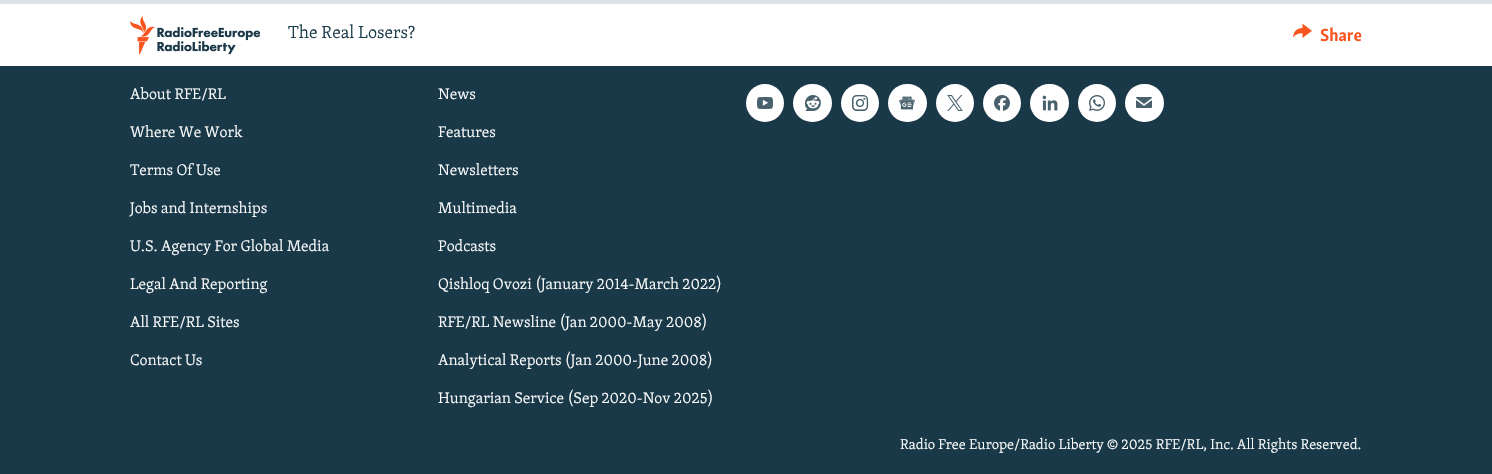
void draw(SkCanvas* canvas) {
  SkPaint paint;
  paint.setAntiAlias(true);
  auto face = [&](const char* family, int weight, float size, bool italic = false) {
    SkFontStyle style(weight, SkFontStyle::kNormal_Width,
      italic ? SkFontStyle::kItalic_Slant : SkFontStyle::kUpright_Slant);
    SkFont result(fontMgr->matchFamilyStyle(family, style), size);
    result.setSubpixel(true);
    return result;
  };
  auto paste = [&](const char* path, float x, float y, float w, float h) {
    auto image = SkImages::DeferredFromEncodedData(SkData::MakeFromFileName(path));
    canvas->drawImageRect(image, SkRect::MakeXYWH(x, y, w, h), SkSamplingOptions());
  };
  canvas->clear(0xff1a3948);
  paint.setColor(0xffffffff);
  canvas->drawRect(SkRect::MakeXYWH(0, 4, 1492, 62), paint);
  paint.setColor(0xffdce4e8);
  canvas->drawRect(SkRect::MakeXYWH(0, 0, 1492, 4), paint);
  paste("img/1.png", 130, 15, 130, 40);
  paste("img/2.png", 1293, 23, 19, 15);
  paint.setColor(0xffffffff);
  canvas->drawCircle(765, 103, 19, paint);
  paste("img/3.png", 757, 97, 16, 12);
  canvas->drawRoundRect(SkRect::MakeXYWH(793, 84, 39, 38), 19, 19, paint);
  paste("img/4.png", 805, 95, 16, 16);
  canvas->drawCircle(860, 103, 19, paint);
  paste("img/5.png", 852, 95, 17, 16);
  canvas->drawRoundRect(SkRect::MakeXYWH(888, 84, 39, 38), 19, 19, paint);
  paste("img/6.png", 899, 96, 16, 14);
  canvas->drawCircle(955, 103, 19, paint);
  paste("img/7.png", 947, 95, 16, 16);
  canvas->drawCircle(1002, 103, 19, paint);
  paste("img/8.png", 994, 95, 16, 16);
  canvas->drawRoundRect(SkRect::MakeXYWH(1030, 84, 39, 38), 19, 19, paint);
  paste("img/9.png", 1042, 95, 16, 16);
  canvas->drawCircle(1097, 103, 19, paint);
  paste("img/10.png", 1089, 95, 16, 16);
  canvas->drawRoundRect(SkRect::MakeXYWH(1125, 84, 39, 38), 19, 19, paint);
  paste("img/11.png", 1136, 97, 16, 11);
  auto f0 = face("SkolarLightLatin", 300, 18);
  paint.setColor(0xff1a3948);
  canvas->drawString("The Real Losers?", 288, 38, f0, paint);
  auto f1 = face("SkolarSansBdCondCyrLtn", 700, 18);
  paint.setColor(0xfffa5420);
  canvas->drawString("Share", 1320, 41, f1, paint);
  auto f2 = face("SkolarLightLatin", 300, 15.75f);
  paint.setColor(0xffffffff);
  {
    const struct { const char* s; float x, y; } items[] = {
      {"About RFE/RL", 130, 99},
      {"Where We Work", 130, 137},
      {"Terms Of Use", 130, 175},
      {"Jobs and Internships", 130, 213},
      {"U.S. Agency For Global Media", 130, 251},
      {"Legal And Reporting", 130, 289},
      {"All RFE/RL Sites", 130, 327},
      {"Contact Us", 130, 365},
      {"News", 438, 99},
      {"Features", 438, 137},
      {"Newsletters", 438, 175},
      {"Multimedia", 438, 213},
      {"Podcasts", 438, 251},
      {"Qishloq Ovozi (January 2014-March 2022)", 438, 289},
      {"RFE/RL Newsline (Jan 2000-May 2008)", 438, 327},
      {"Analytical Reports (Jan 2000-June 2008)", 438, 365},
      {"Hungarian Service (Sep 2020-Nov 2025)", 438, 403},
    };
    for (auto [s, x, y] : items) {
      canvas->drawString(s, x, y, f2, paint);
    }
  }
  auto f3 = face("SkolarLightLatin", 300, 14.6f);
  canvas->drawString("Radio Free Europe/Radio Liberty © 2025 RFE/RL, Inc. All Rights Reserved.", 900, 449, f3, paint);
}
